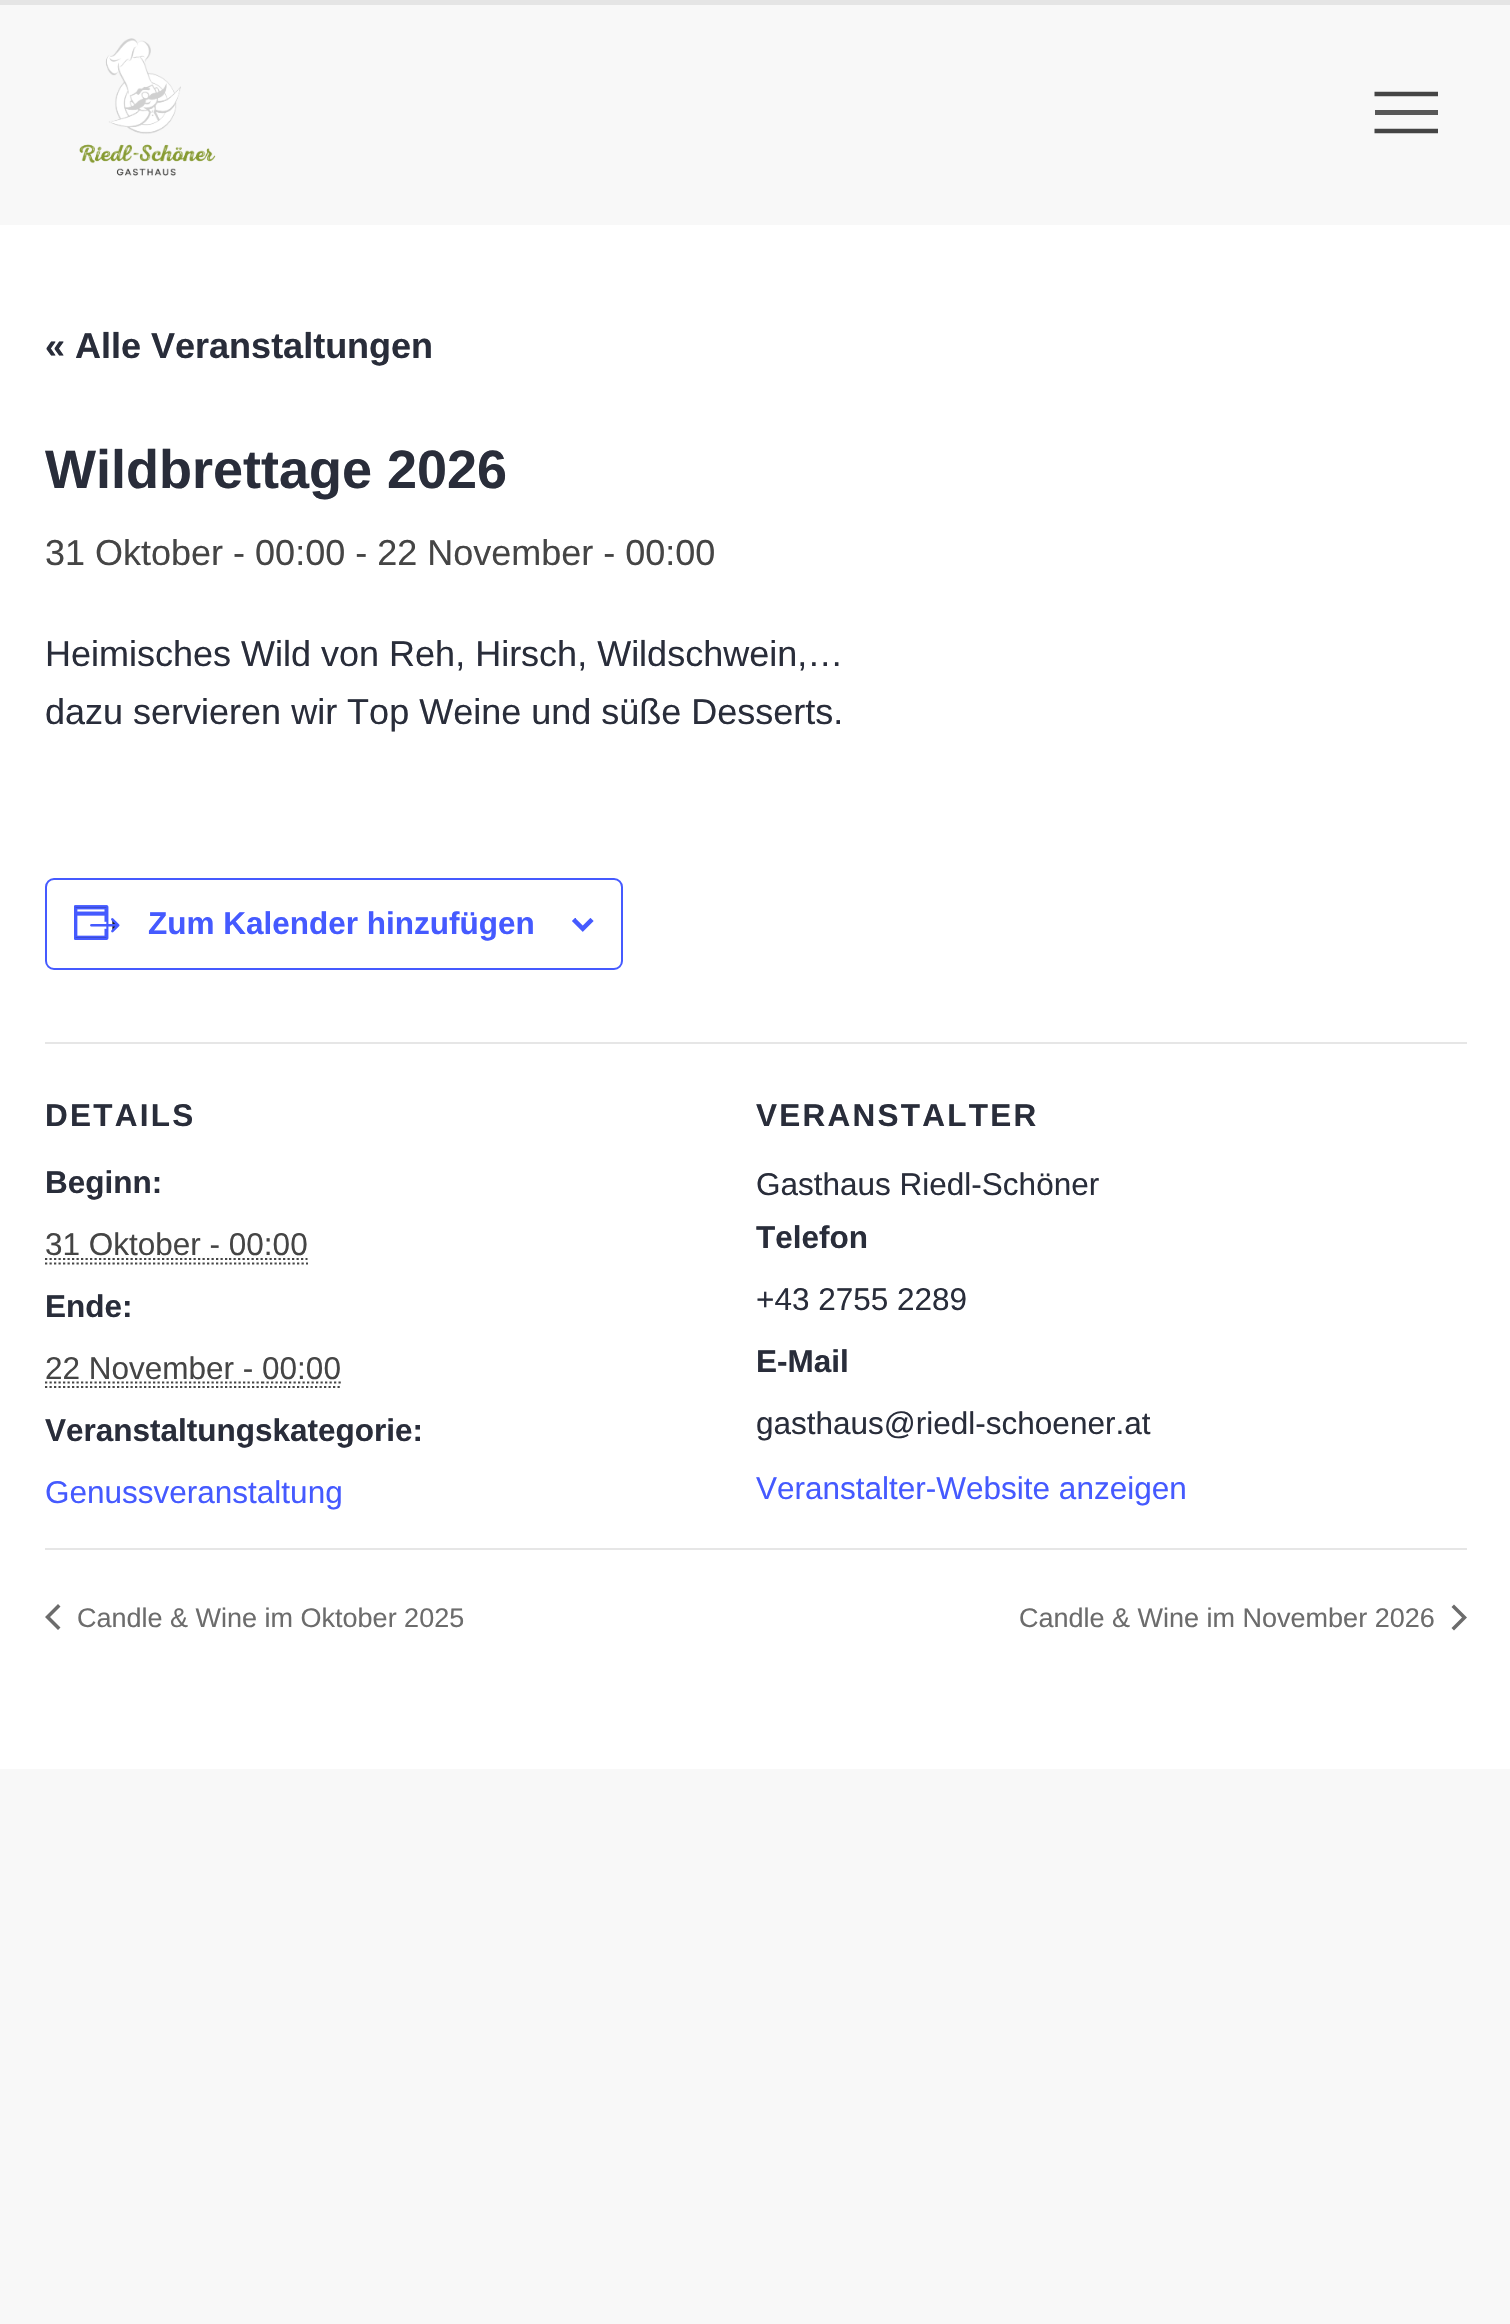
void draw(SkCanvas* canvas) {
  SkPaint paint;
  paint.setAntiAlias(true);
  auto face = [&](const char* family, int weight, float size, bool italic = false) {
    SkFontStyle style(weight, SkFontStyle::kNormal_Width,
      italic ? SkFontStyle::kItalic_Slant : SkFontStyle::kUpright_Slant);
    SkFont result(fontMgr->matchFamilyStyle(family, style), size);
    result.setSubpixel(true);
    return result;
  };
  auto writeSpaced = [&](const char* s, float x, float y, const SkFont& font, const SkPaint& ink, float letter, float word) {
    std::vector<SkGlyphID> glyphs(font.countText(s, strlen(s), SkTextEncoding::kUTF8));
    std::vector<float> xs(glyphs.size());
    font.textToGlyphs(s, strlen(s), SkTextEncoding::kUTF8, glyphs);
    font.getXPos(glyphs, xs, x);
    float extra = 0;
    for (size_t i = 0; i < glyphs.size(); i++) {
      xs[i] += extra;
      extra += letter + word * (glyphs[i] == font.unicharToGlyph(' '));
    }
    canvas->drawTextBlob(SkTextBlob::MakeFromPosHGlyphs(glyphs, xs, y, font), 0, 0, ink);
  };
  auto paste = [&](const char* path, float x, float y, float w, float h) {
    auto image = SkImages::DeferredFromEncodedData(SkData::MakeFromFileName(path));
    canvas->drawImageRect(image, SkRect::MakeXYWH(x, y, w, h), SkSamplingOptions());
  };
  auto shape = [&](const char* data, bool evenOdd = false) {
    SkPath result = *SkParsePath::FromSVGString(data);
    if (evenOdd) result.setFillType(SkPathFillType::kEvenOdd);
    return result;
  };
  canvas->clear(0xffffffff);
  paint.setColor(0xffe5e5e5);
  canvas->drawRect(SkRect::MakeXYWH(0, 0, 1510, 5), paint);
  paint.setColor(0xfff8f8f8);
  canvas->drawRect(SkRect::MakeXYWH(0, 5, 1510, 220), paint);
  paste("img/1.png", 79, 38, 137, 138);
  paint.setStroke(true);
  paint.setStrokeWidth(4.5f);
  paint.setColor(0xff454545);
  canvas->drawPath(shape("M1374.5 94H1438"), paint);
  paint.setStroke(false);
  paint.setColor(0xff585858);
  canvas->drawRect(SkRect::MakeXYWH(1375, 110, 63, 5), paint);
  paint.setStroke(true);
  paint.setColor(0xff454545);
  canvas->drawPath(shape("M1374.5 131H1438"), paint);
  paint.setStrokeWidth(2);
  paint.setColor(0xff455aff);
  canvas->drawRoundRect(SkRect::MakeXYWH(46, 879, 576, 90), 8, 8, paint);
  paste("img/2.png", 74, 905, 46, 35);
  paste("img/3.png", 572, 918, 22, 14);
  paint.setStroke(false);
  paint.setColor(0xffe6e6e6);
  canvas->drawRect(SkRect::MakeXYWH(45, 1042, 1422, 2), paint);
  paint.setStroke(true);
  paint.setStrokeWidth(2.2f);
  paint.setColor(0xff454545);
  paint.setPathEffect(SkDashPathEffect::Make({{2.25f, 2.25f}}, 0));
  canvas->drawPath(shape("M45 1263.5H308"), paint);
  paint.setPathEffect(nullptr);
  paint.setPathEffect(SkDashPathEffect::Make({{2.25f, 2.25f}}, 0));
  canvas->drawPath(shape("M45 1259H229"), paint);
  paint.setPathEffect(nullptr);
  paint.setPathEffect(SkDashPathEffect::Make({{2.25f, 2.25f}}, 0));
  canvas->drawPath(shape("M229 1259H307.5"), paint);
  paint.setPathEffect(nullptr);
  paint.setPathEffect(SkDashPathEffect::Make({{2.25f, 2.25f}}, 0));
  canvas->drawPath(shape("M45 1387H342"), paint);
  paint.setPathEffect(nullptr);
  paint.setPathEffect(SkDashPathEffect::Make({{2.25f, 2.25f}}, 0));
  canvas->drawPath(shape("M45 1382.5H262"), paint);
  paint.setPathEffect(nullptr);
  paint.setPathEffect(SkDashPathEffect::Make({{2.25f, 2.25f}}, 0));
  canvas->drawPath(shape("M262 1382.5H341"), paint);
  paint.setPathEffect(nullptr);
  paint.setStroke(false);
  paint.setColor(0xffe6e6e6);
  canvas->drawRect(SkRect::MakeXYWH(45, 1548, 1422, 2), paint);
  paint.setColor(0xff6c6c6c);
  canvas->drawPath(shape("M60.5 1627.5L58 1630L45 1617L58 1604L60.5 1606.5L50 1617Z"), paint);
  canvas->drawPath(shape("M1451.5 1607L1454 1604.5L1467 1617.5L1454 1630.5L1451.5 1628L1462 1617.5Z"), paint);
  paint.setColor(0xfff8f8f8);
  canvas->drawRect(SkRect::MakeXYWH(0, 1769, 1510, 555), paint);
  auto f0 = face("Liberation Sans", 700, 36);
  paint.setColor(0xff292d3a);
  canvas->drawString("« Alle Veranstaltungen", 45, 358, f0, paint);
  auto f1 = face("Liberation Sans", 700, 54);
  canvas->drawString("Wildbrettage 2026", 45, 488, f1, paint);
  auto f2 = face("Liberation Sans", 400, 36);
  paint.setColor(0xff454545);
  canvas->drawString("31 Oktober - 00:00 - 22 November - 00:00", 45, 565, f2, paint);
  paint.setColor(0xff292d3a);
  canvas->drawString("Heimisches Wild von Reh, Hirsch, Wildschwein,…", 45, 666, f2, paint);
  canvas->drawString("dazu servieren wir Top Weine und süße Desserts.", 45, 724, f2, paint);
  auto f3 = face("Liberation Sans", 700, 31.5f);
  paint.setColor(0xff455aff);
  canvas->drawString("Zum Kalender hinzufügen", 148, 934, f3, paint);
  paint.setColor(0xff292d3a);
  writeSpaced("DETAILS", 45, 1126, f3, paint, 2.25f, 0);
  canvas->drawString("Beginn:", 45, 1193, f3, paint);
  auto f4 = face("Liberation Sans", 400, 31.5f);
  paint.setColor(0xff454545);
  canvas->drawString("31 Oktober - 00:00", 45, 1255, f4, paint);
  paint.setColor(0xff292d3a);
  canvas->drawString("Ende:", 45, 1317, f3, paint);
  paint.setColor(0xff454545);
  canvas->drawString("22 November - 00:00", 45, 1379, f4, paint);
  paint.setColor(0xff292d3a);
  canvas->drawString("Veranstaltungskategorie:", 45, 1441, f3, paint);
  paint.setColor(0xff455aff);
  canvas->drawString("Genussveranstaltung", 45, 1503, f4, paint);
  paint.setColor(0xff292d3a);
  writeSpaced("VERANSTALTER", 756, 1126, f3, paint, 2.25f, 0);
  canvas->drawString("Gasthaus Riedl-Schöner", 756, 1195, f4, paint);
  canvas->drawString("Telefon", 756, 1248, f3, paint);
  canvas->drawString("+43 2755 2289", 756, 1310, f4, paint);
  canvas->drawString("E-Mail", 756, 1372, f3, paint);
  canvas->drawString("gasthaus@riedl-schoener.at", 756, 1434, f4, paint);
  paint.setColor(0xff455aff);
  canvas->drawString("Veranstalter-Website anzeigen", 756, 1499, f4, paint);
  auto f5 = face("Liberation Sans", 400, 27);
  paint.setColor(0xff6c6c6c);
  canvas->drawString("Candle & Wine im Oktober 2025", 77, 1627, f5, paint);
  canvas->drawString("Candle & Wine im November 2026", 1019, 1627, f5, paint);
}
